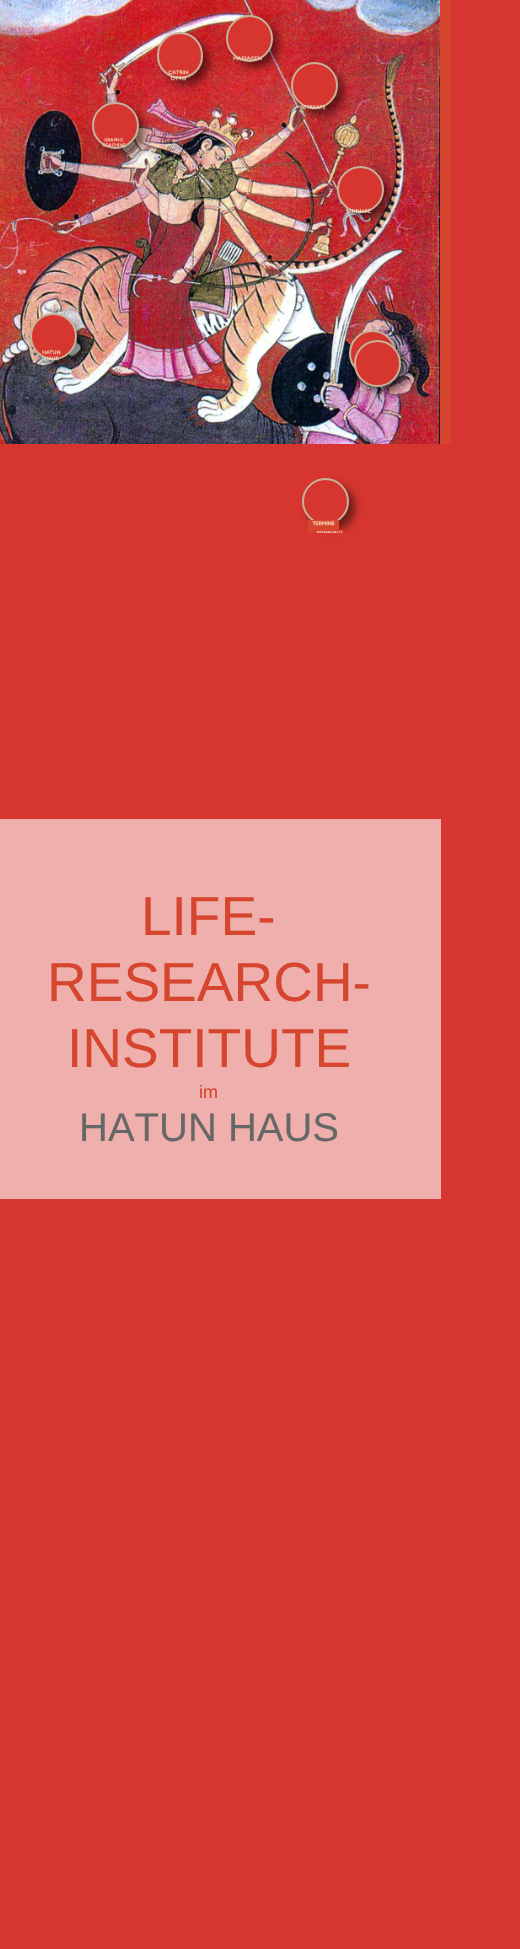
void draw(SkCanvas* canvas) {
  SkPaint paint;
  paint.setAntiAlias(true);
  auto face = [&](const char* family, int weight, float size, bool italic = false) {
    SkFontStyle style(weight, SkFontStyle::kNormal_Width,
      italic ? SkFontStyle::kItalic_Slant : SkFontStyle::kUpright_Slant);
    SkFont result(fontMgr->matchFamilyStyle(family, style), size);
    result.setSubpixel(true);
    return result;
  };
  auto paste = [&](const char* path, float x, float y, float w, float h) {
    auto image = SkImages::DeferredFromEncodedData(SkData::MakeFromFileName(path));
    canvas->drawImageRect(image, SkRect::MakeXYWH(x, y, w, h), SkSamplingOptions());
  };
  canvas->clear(0xffd6362f);
  paint.setColor(0xffd6462f);
  canvas->drawRect(SkRect::MakeXYWH(440, 0, 11, 444), paint);
  paste("img/1.png", 0, 0, 440, 444);
  paint.setColor(0x80000000);
  paint.setMaskFilter(SkMaskFilter::MakeBlur(kNormal_SkBlurStyle, 4));
  canvas->drawRoundRect(SkRect::MakeXYWH(163, 38, 46, 47), 23, 23, paint);
  paint.setMaskFilter(nullptr);
  paint.setColor(0xffd6362f);
  canvas->drawRoundRect(SkRect::MakeXYWH(158, 33, 44, 45), 22, 22, paint);
  paint.setStroke(true);
  paint.setStrokeWidth(2);
  paint.setColor(0xffc7b299);
  canvas->drawRoundRect(SkRect::MakeXYWH(158, 33, 44, 45), 22, 22, paint);
  paint.setStroke(false);
  paint.setColor(0x80000000);
  paint.setMaskFilter(SkMaskFilter::MakeBlur(kNormal_SkBlurStyle, 4));
  canvas->drawRoundRect(SkRect::MakeXYWH(232, 21, 47, 47), 23.5f, 23.5f, paint);
  paint.setMaskFilter(nullptr);
  paint.setColor(0xffd6362f);
  canvas->drawCircle(249.5f, 38.5f, 22.5f, paint);
  paint.setStroke(true);
  paint.setColor(0xffc7b299);
  canvas->drawCircle(249.5f, 38.5f, 22.5f, paint);
  paste("img/2.png", 168, 69, 21, 12);
  paste("img/3.png", 233, 55, 30, 6);
  paint.setStroke(false);
  paint.setColor(0x80000000);
  paint.setMaskFilter(SkMaskFilter::MakeBlur(kNormal_SkBlurStyle, 4));
  canvas->drawRoundRect(SkRect::MakeXYWH(297, 68, 47, 47), 23.5f, 23.5f, paint);
  paint.setMaskFilter(nullptr);
  paint.setColor(0xffd6362f);
  canvas->drawCircle(314.5f, 85.5f, 22.5f, paint);
  paint.setStroke(true);
  paint.setColor(0xffc7b299);
  canvas->drawCircle(314.5f, 85.5f, 22.5f, paint);
  paint.setStroke(false);
  paint.setColor(0x80000000);
  paint.setMaskFilter(SkMaskFilter::MakeBlur(kNormal_SkBlurStyle, 4));
  canvas->drawRoundRect(SkRect::MakeXYWH(98, 108, 47, 47), 23.5f, 23.5f, paint);
  paint.setMaskFilter(nullptr);
  paint.setColor(0xffd6362f);
  canvas->drawCircle(115.5f, 125.5f, 22.5f, paint);
  paint.setStroke(true);
  paint.setColor(0xffc7b299);
  canvas->drawCircle(115.5f, 125.5f, 22.5f, paint);
  paste("img/4.png", 300, 104, 26, 6);
  paste("img/5.png", 102, 137, 24, 10);
  paint.setStroke(false);
  paint.setColor(0x80000000);
  paint.setMaskFilter(SkMaskFilter::MakeBlur(kNormal_SkBlurStyle, 4));
  canvas->drawRoundRect(SkRect::MakeXYWH(343, 172, 47, 47), 23.5f, 23.5f, paint);
  paint.setMaskFilter(nullptr);
  paint.setColor(0xffd6362f);
  canvas->drawCircle(360.5f, 189.5f, 22.5f, paint);
  paint.setStroke(true);
  paint.setColor(0xffc7b299);
  canvas->drawCircle(360.5f, 189.5f, 22.5f, paint);
  paste("img/6.png", 346, 208, 25, 5);
  paint.setStroke(false);
  paint.setColor(0x80000000);
  paint.setMaskFilter(SkMaskFilter::MakeBlur(kNormal_SkBlurStyle, 4));
  canvas->drawRoundRect(SkRect::MakeXYWH(36, 319, 47, 47), 23.5f, 23.5f, paint);
  paint.setMaskFilter(nullptr);
  paint.setColor(0xffd6362f);
  canvas->drawCircle(53.5f, 336.5f, 22.5f, paint);
  paint.setStroke(true);
  paint.setColor(0xffc7b299);
  canvas->drawCircle(53.5f, 336.5f, 22.5f, paint);
  paint.setStroke(false);
  paint.setColor(0x80000000);
  paint.setMaskFilter(SkMaskFilter::MakeBlur(kNormal_SkBlurStyle, 4));
  canvas->drawRoundRect(SkRect::MakeXYWH(355, 336, 47, 47), 23.5f, 23.5f, paint);
  paint.setMaskFilter(nullptr);
  paint.setColor(0xffd6362f);
  canvas->drawCircle(372.5f, 353.5f, 22.5f, paint);
  paint.setStroke(true);
  paint.setColor(0xffc7b299);
  canvas->drawCircle(372.5f, 353.5f, 22.5f, paint);
  paste("img/7.png", 42, 349, 19, 12);
  paste("img/8.png", 359, 378, 1, 1);
  paint.setStroke(false);
  paint.setColor(0x80000000);
  paint.setMaskFilter(SkMaskFilter::MakeBlur(kNormal_SkBlurStyle, 4));
  canvas->drawRoundRect(SkRect::MakeXYWH(360, 346, 47, 47), 23.5f, 23.5f, paint);
  paint.setMaskFilter(nullptr);
  paint.setColor(0xffd6362f);
  canvas->drawCircle(377.5f, 363.5f, 22.5f, paint);
  paint.setStroke(true);
  paint.setColor(0xffc7b299);
  canvas->drawCircle(377.5f, 363.5f, 22.5f, paint);
  paint.setStroke(false);
  paint.setColor(0x80000000);
  paint.setMaskFilter(SkMaskFilter::MakeBlur(kNormal_SkBlurStyle, 4));
  canvas->drawRoundRect(SkRect::MakeXYWH(308, 484, 47, 47), 23.5f, 23.5f, paint);
  paint.setMaskFilter(nullptr);
  paint.setColor(0xffd6362f);
  canvas->drawCircle(325.5f, 501.5f, 22.5f, paint);
  paint.setStroke(true);
  paint.setColor(0xffc7b299);
  canvas->drawCircle(325.5f, 501.5f, 22.5f, paint);
  paste("img/9.png", 308, 520, 31, 13);
  paste("img/10.png", 314, 530, 31, 7);
  paint.setStroke(false);
  paint.setColor(0xffefafac);
  canvas->drawRect(SkRect::MakeXYWH(0, 819, 441, 380), paint);
  auto f0 = face("Liberation Sans", 400, 55);
  paint.setColor(0xffd6462f);
  {
    const struct { const char* s; float x, y; } items[] = {
      {"LIFE-", 141, 935},
      {"RESEARCH-", 47, 1001},
      {"INSTITUTE", 67, 1067},
    };
    for (auto [s, x, y] : items) {
      canvas->drawString(s, x, y, f0, paint);
    }
  }
  auto f1 = face("Liberation Sans", 400, 18);
  canvas->drawString("im", 199, 1098, f1, paint);
  auto f2 = face("Liberation Sans", 400, 40);
  paint.setColor(0xff676767);
  canvas->drawString("HATUN HAUS", 79, 1141, f2, paint);
}
